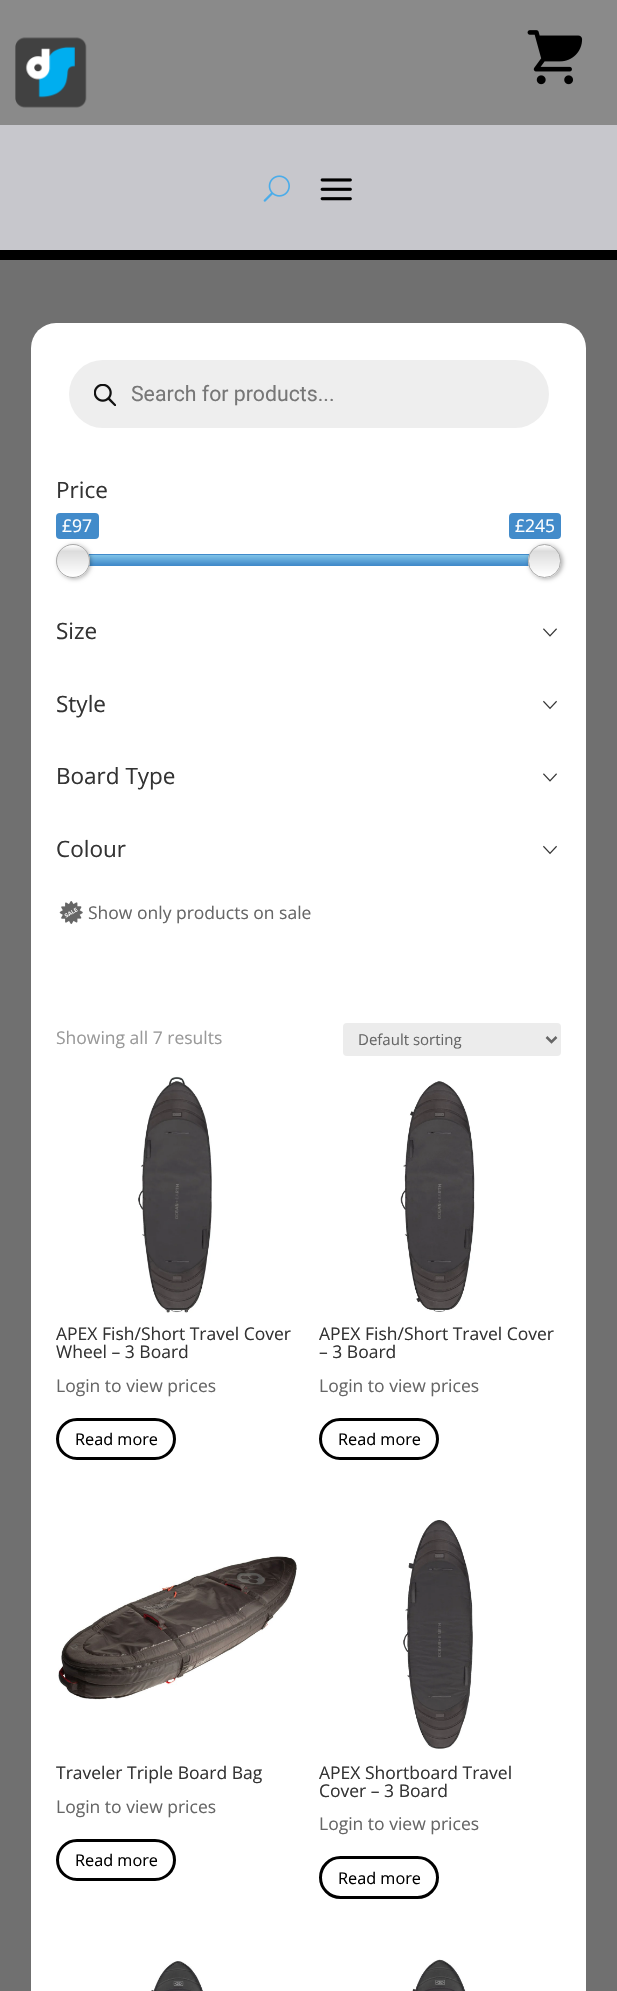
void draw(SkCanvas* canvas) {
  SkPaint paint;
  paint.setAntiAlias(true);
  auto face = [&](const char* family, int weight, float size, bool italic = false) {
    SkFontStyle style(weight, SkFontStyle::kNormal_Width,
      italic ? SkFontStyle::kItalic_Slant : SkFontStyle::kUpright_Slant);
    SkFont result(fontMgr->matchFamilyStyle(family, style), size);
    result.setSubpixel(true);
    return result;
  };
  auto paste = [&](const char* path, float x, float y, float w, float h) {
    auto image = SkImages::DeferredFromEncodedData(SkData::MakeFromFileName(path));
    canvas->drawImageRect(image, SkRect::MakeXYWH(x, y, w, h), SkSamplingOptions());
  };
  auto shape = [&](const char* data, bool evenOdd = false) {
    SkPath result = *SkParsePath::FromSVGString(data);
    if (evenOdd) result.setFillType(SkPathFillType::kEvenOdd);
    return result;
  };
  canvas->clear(0xff707070);
  paint.setColor(0xff8a8a8a);
  canvas->drawRect(SkRect::MakeXYWH(0, 0, 617, 125), paint);
  paste("img/1.png", 15, 37, 72, 71);
  paste("img/2.png", 527, 30, 56, 55);
  paint.setColor(0xffc7c7cc);
  canvas->drawRect(SkRect::MakeXYWH(0, 125, 617, 125), paint);
  paint.setColor(0xff000000);
  canvas->drawRect(SkRect::MakeXYWH(0, 250, 617, 10), paint);
  paste("img/3.png", 263, 175, 27, 27);
  paste("img/4.png", 320, 178, 32, 23);
  paint.setColor(0xffffffff);
  canvas->drawRoundRect(SkRect::MakeXYWH(31, 323, 555, 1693), 25, 25, paint);
  paint.setColor(0xffeeeeee);
  canvas->drawRoundRect(SkRect::MakeXYWH(69, 360, 480, 68), 34, 34, paint);
  paste("img/5.png", 94, 384, 22, 22);
  paint.setColor(0xff428bca);
  canvas->drawRoundRect(SkRect::MakeXYWH(56, 513, 43, 26), 4, 4, paint);
  canvas->drawRoundRect(SkRect::MakeXYWH(509, 513, 52, 26), 4, 4, paint);
  paint.setStroke(true);
  paint.setStrokeWidth(1);
  paint.setColor(0xffcccccc);
  canvas->drawRoundRect(SkRect::MakeXYWH(56.5f, 554.5f, 504, 11), 5.5f, 5.5f, paint);
  paint.setStroke(false);
  {
    const SkColor colors[] = {0xff428bca, 0xff7fc3e8};
    const float stops[] = {0, 1};
    const SkPoint ends[] = {{309, 565}, {309, 555}};
    paint.setShader(SkGradientShader::MakeLinear(ends, colors, stops, 2, SkTileMode::kClamp));
    paint.setAlpha(255);
  }
  canvas->drawRect(SkRect::MakeXYWH(88, 555, 441, 10), paint);
  paint.setShader(nullptr);
  paint.setColor(0xff428bca);
  canvas->drawRect(SkRect::MakeXYWH(88, 554, 442, 1), paint);
  canvas->drawRect(SkRect::MakeXYWH(89, 565, 440, 1), paint);
  paint.setColor(0x4d000000);
  paint.setMaskFilter(SkMaskFilter::MakeBlur(kNormal_SkBlurStyle, 2));
  canvas->drawRoundRect(SkRect::MakeXYWH(58, 545, 33, 34), 16.5f, 16.5f, paint);
  paint.setMaskFilter(nullptr);
  canvas->save();
  canvas->clipPath(shape("M73 544C82.5 544 90 551.5 90 561C90 570.5 82.5 578 73 578C63.5 578 56 570.5 56 561C56 551.5 63.5 544 73 544Z"), true);
  {
    const SkColor colors[] = {0xffffffff, 0xffdcdcdc, 0xffffffff};
    const float stops[] = {0, 0.2f, 1};
    const SkPoint ends[] = {{73, 545}, {73, 576}};
    paint.setShader(SkGradientShader::MakeLinear(ends, colors, stops, 3, SkTileMode::kClamp));
    paint.setAlpha(255);
  }
  canvas->drawRect(SkRect::MakeXYWH(56, 545, 34, 31), paint);
  {
    const SkColor colors[] = {0xffffffff, 0xffdcdcdc, 0xffffffff};
    const float stops[] = {0, 0.2f, 1};
    const SkPoint ends[] = {{73, 576}, {73, 608}};
    paint.setShader(SkGradientShader::MakeLinear(ends, colors, stops, 3, SkTileMode::kClamp));
    paint.setAlpha(255);
  }
  canvas->drawRect(SkRect::MakeXYWH(65, 576, 16, 2), paint);
  canvas->restore();
  paint.setStroke(true);
  paint.setShader(nullptr);
  paint.setColor(0xffaaaaaa);
  canvas->drawCircle(73, 561, 16.5f, paint);
  paint.setStroke(false);
  paint.setColor(0x4d000000);
  paint.setMaskFilter(SkMaskFilter::MakeBlur(kNormal_SkBlurStyle, 2));
  canvas->drawRoundRect(SkRect::MakeXYWH(529, 545, 34, 34), 17, 17, paint);
  paint.setMaskFilter(nullptr);
  canvas->save();
  canvas->clipPath(shape("M544.5 544C553.5 544 561 551.5 561 560.5V561.5C561 570.5 553.5 578 544.5 578C535.5 578 528 570.5 528 561.5V560.5C528 551.5 535.5 544 544.5 544Z"), true);
  {
    const SkColor colors[] = {0xffffffff, 0xffdcdcdc, 0xffffffff};
    const float stops[] = {0, 0.2f, 1};
    const SkPoint ends[] = {{544, 545}, {544, 576}};
    paint.setShader(SkGradientShader::MakeLinear(ends, colors, stops, 3, SkTileMode::kClamp));
    paint.setAlpha(255);
  }
  canvas->drawRect(SkRect::MakeXYWH(528, 545, 33, 31), paint);
  {
    const SkColor colors[] = {0xffffffff, 0xffdcdcdc, 0xffffffff};
    const float stops[] = {0, 0.2f, 1};
    const SkPoint ends[] = {{544, 576}, {544, 608}};
    paint.setShader(SkGradientShader::MakeLinear(ends, colors, stops, 3, SkTileMode::kClamp));
    paint.setAlpha(255);
  }
  canvas->drawRect(SkRect::MakeXYWH(528, 576, 33, 2), paint);
  canvas->restore();
  paint.setStroke(true);
  paint.setShader(nullptr);
  paint.setColor(0xffaaaaaa);
  canvas->drawRoundRect(SkRect::MakeXYWH(528.5f, 544.5f, 32, 33), 16, 16, paint);
  paste("img/6.png", 543, 628, 14, 9);
  paste("img/7.png", 543, 700, 14, 10);
  paste("img/6.png", 543, 773, 14, 9);
  paste("img/7.png", 543, 845, 14, 10);
  paste("img/8.png", 59, 901, 24, 23);
  paint.setStroke(false);
  paint.setColor(0xffececec);
  canvas->drawRoundRect(SkRect::MakeXYWH(343, 1023, 218, 33), 4, 4, paint);
  paint.setStroke(true);
  paint.setStrokeWidth(2.5f);
  paint.setColor(0xff666666);
  canvas->drawPath(shape("M546.5 1037L551.5 1042L556.5 1037"), paint);
  paste("img/9.png", 138, 1076, 74, 237);
  paint.setStrokeWidth(3);
  paint.setColor(0xff000000);
  canvas->drawRoundRect(SkRect::MakeXYWH(57.5f, 1419.5f, 117, 39), 19.5f, 19.5f, paint);
  paste("img/10.png", 400, 1081, 75, 231);
  canvas->drawRoundRect(SkRect::MakeXYWH(320.5f, 1419.5f, 117, 39), 19.5f, 19.5f, paint);
  paste("img/11.png", 58, 1556, 239, 144);
  canvas->drawRoundRect(SkRect::MakeXYWH(57.5f, 1840.5f, 117, 39), 19.5f, 19.5f, paint);
  paste("img/12.png", 403, 1520, 70, 229);
  canvas->drawRoundRect(SkRect::MakeXYWH(320.5f, 1857.5f, 117, 40), 20, 20, paint);
  paste("img/13.png", 151, 1961, 52, 30);
  paste("img/14.png", 412, 1959, 54, 32);
  auto f0 = face("Roboto", 400, 21.25f);
  paint.setStroke(false);
  paint.setColor(0xff777777);
  canvas->drawString("Search for products...", 131, 401, f0, paint);
  auto f1 = face("Open Sans", 400, 22.5f);
  paint.setColor(0xff333333);
  canvas->drawString("Price", 56, 498, f1, paint);
  auto f2 = face("Open Sans", 400, 17.5f);
  paint.setColor(0xffffffff);
  canvas->drawString("£97", 62, 532, f2, paint);
  canvas->drawString("£245", 515, 532, f2, paint);
  paint.setColor(0xff333333);
  {
    const struct { const char* s; float x, y; } items[] = {
      {"Size", 56, 639},
      {"Style", 56, 712},
      {"Board Type", 56, 784},
      {"Colour", 56, 857},
    };
    for (auto [s, x, y] : items) {
      canvas->drawString(s, x, y, f1, paint);
    }
  }
  paint.setColor(0xff666666);
  canvas->drawString("Show only products on sale", 88, 919, f2, paint);
  paint.setColor(0xff999999);
  canvas->drawString("Showing all 7 results", 56, 1044, f2, paint);
  auto f3 = face("Open Sans", 400, 15);
  paint.setColor(0xff666666);
  canvas->drawString("Default sorting", 358, 1045, f3, paint);
  paint.setColor(0xff333333);
  canvas->drawString("APEX Fish/Short Travel Cover", 56, 1340, f2, paint);
  canvas->drawString("Wheel – 3 Board", 56, 1358, f2, paint);
  paint.setColor(0xff666666);
  canvas->drawString("Login to view prices", 56, 1392, f2, paint);
  auto f4 = face("Open Sans", 400, 16.25f);
  paint.setColor(0xff000000);
  canvas->drawString("Read more", 75, 1445, f4, paint);
  paint.setColor(0xff333333);
  canvas->drawString("APEX Fish/Short Travel Cover", 319, 1340, f2, paint);
  canvas->drawString("– 3 Board", 319, 1358, f2, paint);
  paint.setColor(0xff666666);
  canvas->drawString("Login to view prices", 319, 1392, f2, paint);
  paint.setColor(0xff000000);
  canvas->drawString("Read more", 338, 1445, f4, paint);
  paint.setColor(0xff333333);
  canvas->drawString("Traveler Triple Board Bag", 56, 1779, f2, paint);
  paint.setColor(0xff666666);
  canvas->drawString("Login to view prices", 56, 1813, f2, paint);
  paint.setColor(0xff000000);
  canvas->drawString("Read more", 75, 1866, f4, paint);
  paint.setColor(0xff333333);
  canvas->drawString("APEX Shortboard Travel", 319, 1779, f2, paint);
  canvas->drawString("Cover – 3 Board", 319, 1797, f2, paint);
  paint.setColor(0xff666666);
  canvas->drawString("Login to view prices", 319, 1830, f2, paint);
  paint.setColor(0xff000000);
  canvas->drawString("Read more", 338, 1884, f4, paint);
}
